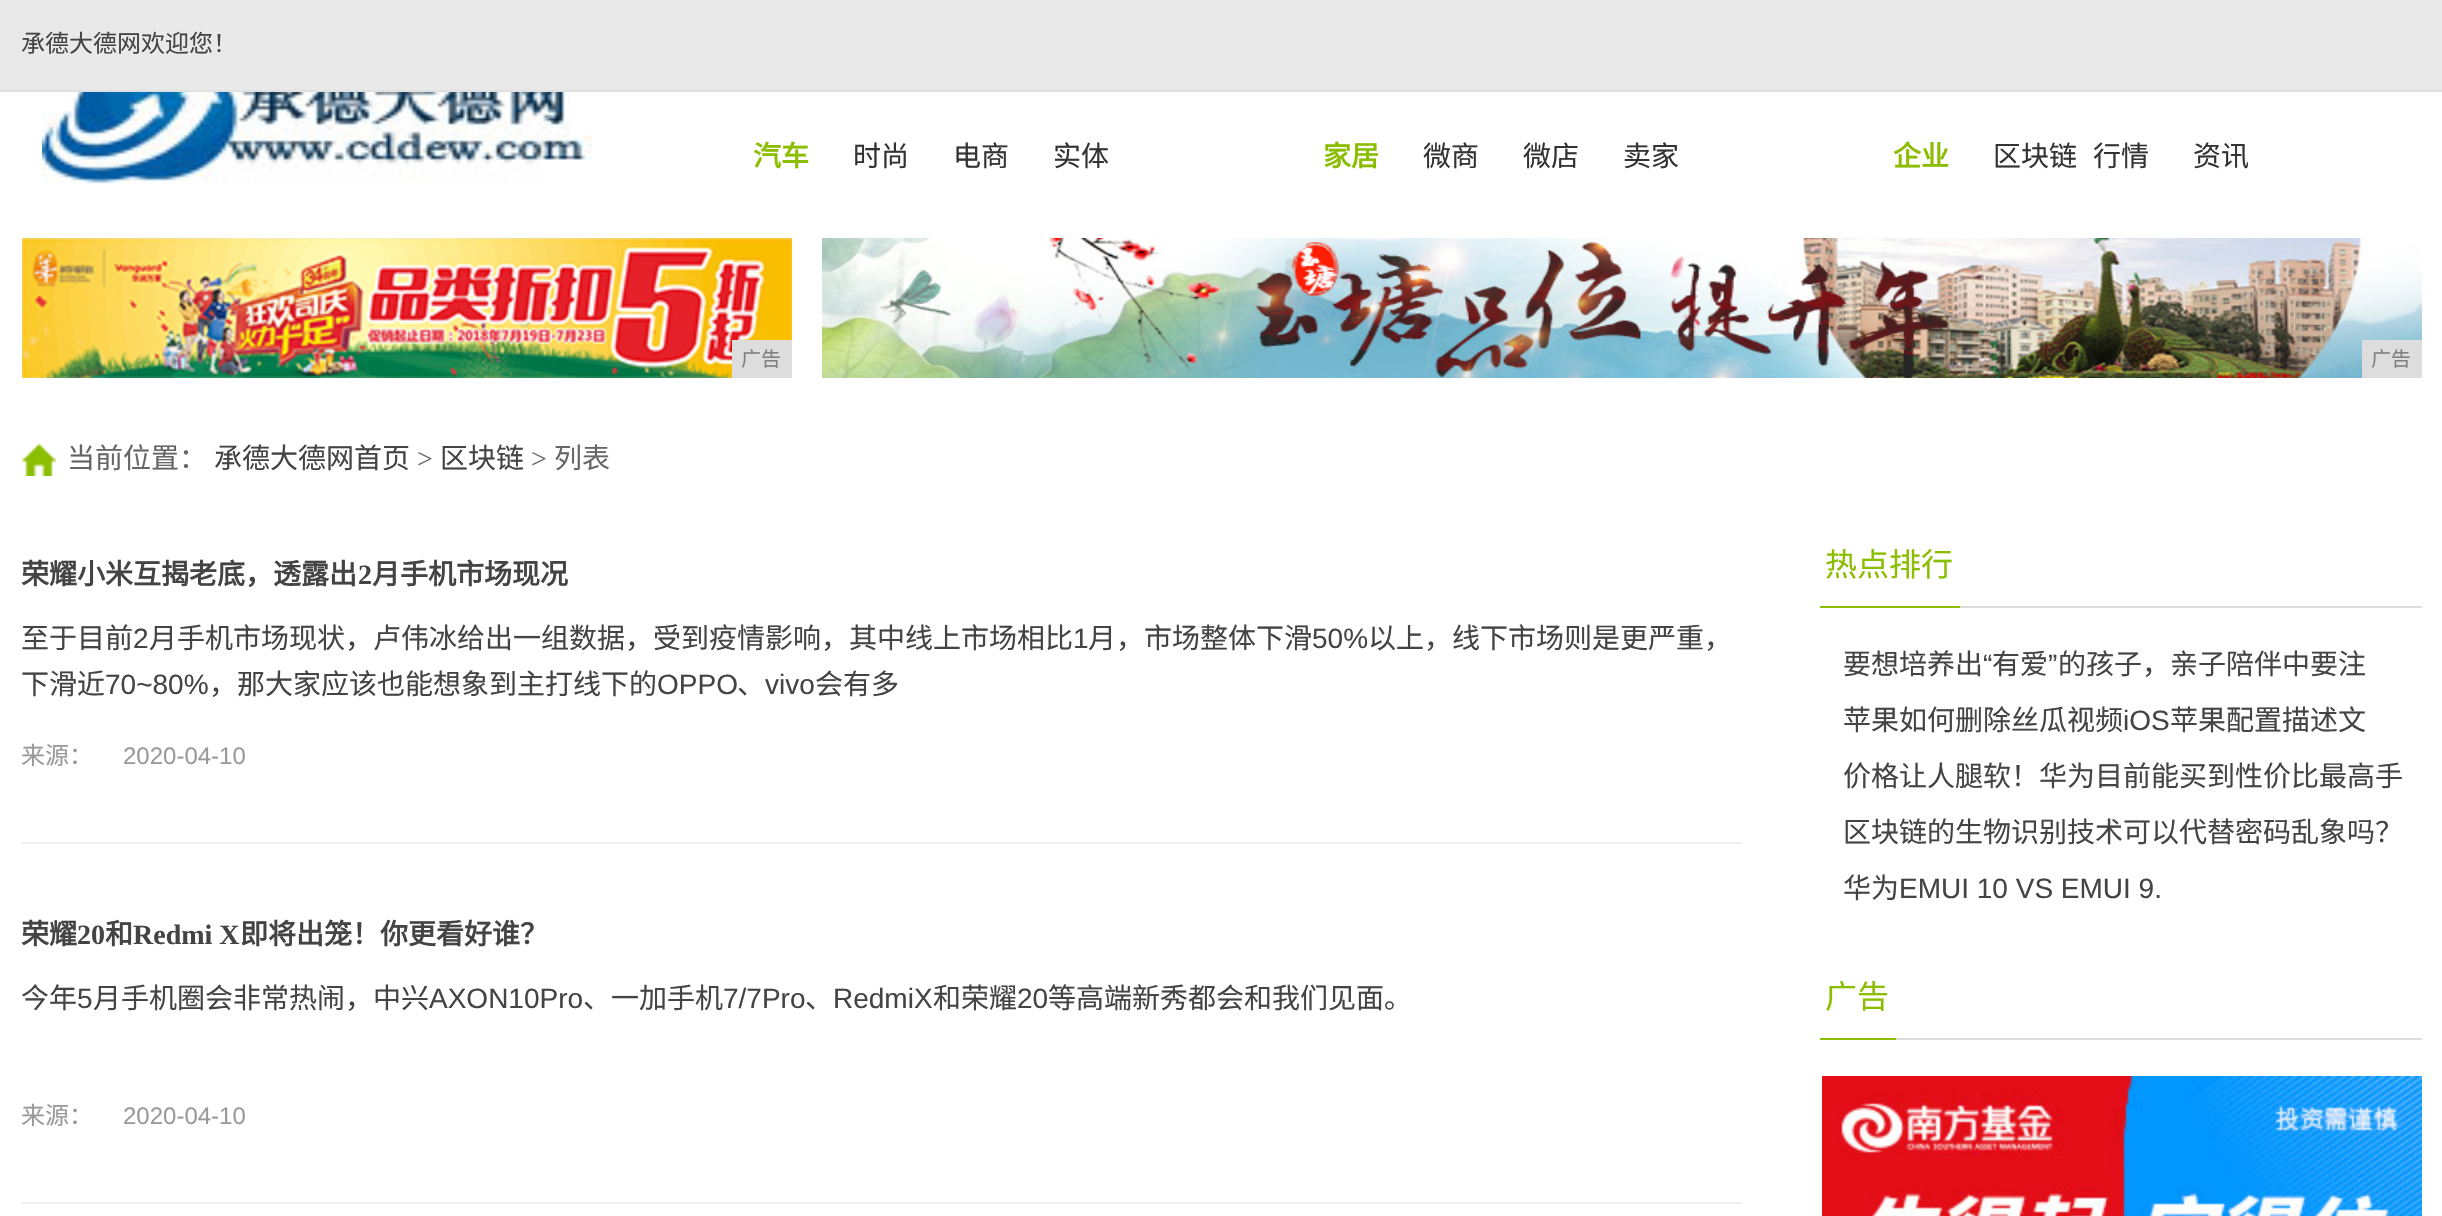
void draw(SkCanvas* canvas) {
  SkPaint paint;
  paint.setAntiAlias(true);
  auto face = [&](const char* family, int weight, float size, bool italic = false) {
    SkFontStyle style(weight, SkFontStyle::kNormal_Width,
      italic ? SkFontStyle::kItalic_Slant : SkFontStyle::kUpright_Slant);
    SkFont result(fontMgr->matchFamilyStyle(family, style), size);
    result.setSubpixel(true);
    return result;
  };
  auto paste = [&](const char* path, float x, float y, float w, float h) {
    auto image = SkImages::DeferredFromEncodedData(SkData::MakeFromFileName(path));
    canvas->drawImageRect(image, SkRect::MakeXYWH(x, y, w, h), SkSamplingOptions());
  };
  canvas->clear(0xffffffff);
  paint.setColor(0xffe9e9ea);
  canvas->drawRect(SkRect::MakeXYWH(0, 0, 2442, 90), paint);
  paint.setColor(0xffe0e0e0);
  canvas->drawRect(SkRect::MakeXYWH(0, 90, 2442, 2), paint);
  paste("img/1.png", 42, 92, 550, 92);
  paste("img/2.png", 22, 238, 770, 140);
  paint.setColor(0xffdddddd);
  canvas->drawRect(SkRect::MakeXYWH(732, 340, 60, 38), paint);
  paste("img/3.png", 822, 238, 1600, 140);
  canvas->drawRect(SkRect::MakeXYWH(2362, 340, 60, 38), paint);
  paste("img/4.png", 22, 443, 34, 33);
  {
    const struct { float x, y, w, h; SkColor color; } items[] = {
      {22, 842, 1720, 2, 0xffefefef},
      {22, 1202, 1720, 2, 0xffefefef},
      {1960, 606, 462, 2, 0xffdcdcdc},
      {1820, 606, 140, 2, 0xff8bbd00},
      {1896, 1038, 526, 2, 0xffdcdcdc},
      {1820, 1038, 76, 2, 0xff8bbd00},
    };
    for (auto [x, y, w, h, color] : items) {
      paint.setColor(color);
      canvas->drawRect(SkRect::MakeXYWH(x, y, w, h), paint);
    }
  }
  paste("img/5.png", 1822, 1076, 600, 140);
  auto f0 = face("Noto Sans CJK SC", 400, 24);
  paint.setColor(0xff444444);
  canvas->drawString("承德大德网欢迎您！", 21, 52, f0, paint);
  auto f1 = face("Noto Sans CJK SC", 700, 28);
  paint.setColor(0xff8bbd00);
  canvas->drawString("汽车", 753, 166, f1, paint);
  auto f2 = face("Noto Sans CJK SC", 400, 28);
  paint.setColor(0xff333333);
  {
    const struct { const char* s; float x, y; } items[] = {
      {"时尚", 853, 166},
      {"电商", 953, 166},
      {"实体", 1053, 166},
    };
    for (auto [s, x, y] : items) {
      canvas->drawString(s, x, y, f2, paint);
    }
  }
  paint.setColor(0xff8bbd00);
  canvas->drawString("家居", 1323, 166, f1, paint);
  paint.setColor(0xff333333);
  {
    const struct { const char* s; float x, y; } items[] = {
      {"微商", 1423, 166},
      {"微店", 1523, 166},
      {"卖家", 1623, 166},
    };
    for (auto [s, x, y] : items) {
      canvas->drawString(s, x, y, f2, paint);
    }
  }
  paint.setColor(0xff8bbd00);
  canvas->drawString("企业", 1893, 166, f1, paint);
  paint.setColor(0xff333333);
  {
    const struct { const char* s; float x, y; } items[] = {
      {"区块链", 1993, 166},
      {"行情", 2093, 166},
      {"资讯", 2193, 166},
    };
    for (auto [s, x, y] : items) {
      canvas->drawString(s, x, y, f2, paint);
    }
  }
  auto f3 = face("Noto Sans CJK SC", 400, 20);
  paint.setColor(0xff808080);
  canvas->drawString("广告", 741, 366, f3, paint);
  canvas->drawString("广告", 2371, 366, f3, paint);
  paint.setColor(0xff666666);
  canvas->drawString("当前位置：", 67, 468, f2, paint);
  paint.setColor(0xff444444);
  canvas->drawString("承德大德网首页", 214, 468, f2, paint);
  auto f4 = face("Liberation Serif", 400, 28);
  paint.setColor(0xff666666);
  canvas->drawString(">", 417, 468, f4, paint);
  paint.setColor(0xff444444);
  canvas->drawString("区块链", 440, 468, f2, paint);
  paint.setColor(0xff666666);
  canvas->drawString(">", 531, 468, f4, paint);
  canvas->drawString("列表", 554, 468, f2, paint);
  paint.setColor(0xff444444);
  canvas->drawString("荣耀小米互揭老底，透露出", 21, 584, f1, paint);
  auto f5 = face("Liberation Serif", 700, 28);
  canvas->drawString("2", 358, 584, f5, paint);
  canvas->drawString("月手机市场现况", 372, 584, f1, paint);
  canvas->drawString("至于目前", 21, 648, f2, paint);
  auto f6 = face("Liberation Sans", 400, 28);
  canvas->drawString("2", 133, 648, f6, paint);
  canvas->drawString("月手机市场现状，卢伟冰给出一组数据，受到疫情影响，其中线上市场相比", 149, 648, f2, paint);
  canvas->drawString("1", 1073, 648, f6, paint);
  canvas->drawString("月，市场整体下滑", 1088, 648, f2, paint);
  canvas->drawString("50%", 1312, 648, f6, paint);
  canvas->drawString("以上，线下市场则是更严重，", 1368, 648, f2, paint);
  canvas->drawString("下滑近", 21, 694, f2, paint);
  canvas->drawString("70~80%", 105, 694, f6, paint);
  canvas->drawString("，那大家应该也能想象到主打线下的", 209, 694, f2, paint);
  canvas->drawString("OPPO", 657, 694, f6, paint);
  canvas->drawString("、", 737, 694, f2, paint);
  canvas->drawString("vivo", 765, 694, f6, paint);
  canvas->drawString("会有多", 815, 694, f2, paint);
  paint.setColor(0xff999999);
  canvas->drawString("来源：", 21, 764, f0, paint);
  auto f7 = face("Liberation Sans", 400, 24);
  canvas->drawString("2020-04-10", 123, 764, f7, paint);
  paint.setColor(0xff444444);
  canvas->drawString("荣耀", 21, 944, f1, paint);
  canvas->drawString("20", 77, 944, f5, paint);
  canvas->drawString("和", 105, 944, f1, paint);
  canvas->drawString("Redmi X", 133, 944, f5, paint);
  canvas->drawString("即将出笼！你更看好谁？", 240, 944, f1, paint);
  canvas->drawString("今年", 21, 1008, f2, paint);
  canvas->drawString("5", 77, 1008, f6, paint);
  canvas->drawString("月手机圈会非常热闹，中兴", 93, 1008, f2, paint);
  canvas->drawString("AXON10Pro", 429, 1008, f6, paint);
  canvas->drawString("、一加手机", 583, 1008, f2, paint);
  canvas->drawString("7/7Pro", 723, 1008, f6, paint);
  canvas->drawString("、", 805, 1008, f2, paint);
  canvas->drawString("RedmiX", 833, 1008, f6, paint);
  canvas->drawString("和荣耀", 933, 1008, f2, paint);
  canvas->drawString("20", 1017, 1008, f6, paint);
  canvas->drawString("等高端新秀都会和我们见面。", 1048, 1008, f2, paint);
  paint.setColor(0xff999999);
  canvas->drawString("来源：", 21, 1124, f0, paint);
  canvas->drawString("2020-04-10", 123, 1124, f7, paint);
  auto f8 = face("Noto Sans CJK SC", 400, 32);
  paint.setColor(0xff8bbd00);
  canvas->drawString("热点排行", 1825, 576, f8, paint);
  paint.setColor(0xff444444);
  canvas->drawString("要想培养出", 1843, 674, f2, paint);
  canvas->drawString("“", 1983, 674, f6, paint);
  canvas->drawString("有爱", 1992, 674, f2, paint);
  canvas->drawString("”", 2048, 674, f6, paint);
  canvas->drawString("的孩子，亲子陪伴中要注", 2058, 674, f2, paint);
  canvas->drawString("苹果如何删除丝瓜视频", 1843, 730, f2, paint);
  canvas->drawString("iOS", 2123, 730, f6, paint);
  {
    const struct { const char* s; float x, y; } items[] = {
      {"苹果配置描述文", 2170, 730},
      {"价格让人腿软！华为目前能买到性价比最高手", 1843, 786},
      {"区块链的生物识别技术可以代替密码乱象吗？", 1843, 842},
      {"华为", 1843, 898},
    };
    for (auto [s, x, y] : items) {
      canvas->drawString(s, x, y, f2, paint);
    }
  }
  canvas->drawString("EMUI 10 VS EMUI 9.", 1899, 898, f6, paint);
  paint.setColor(0xff8bbd00);
  canvas->drawString("广告", 1825, 1008, f8, paint);
}
